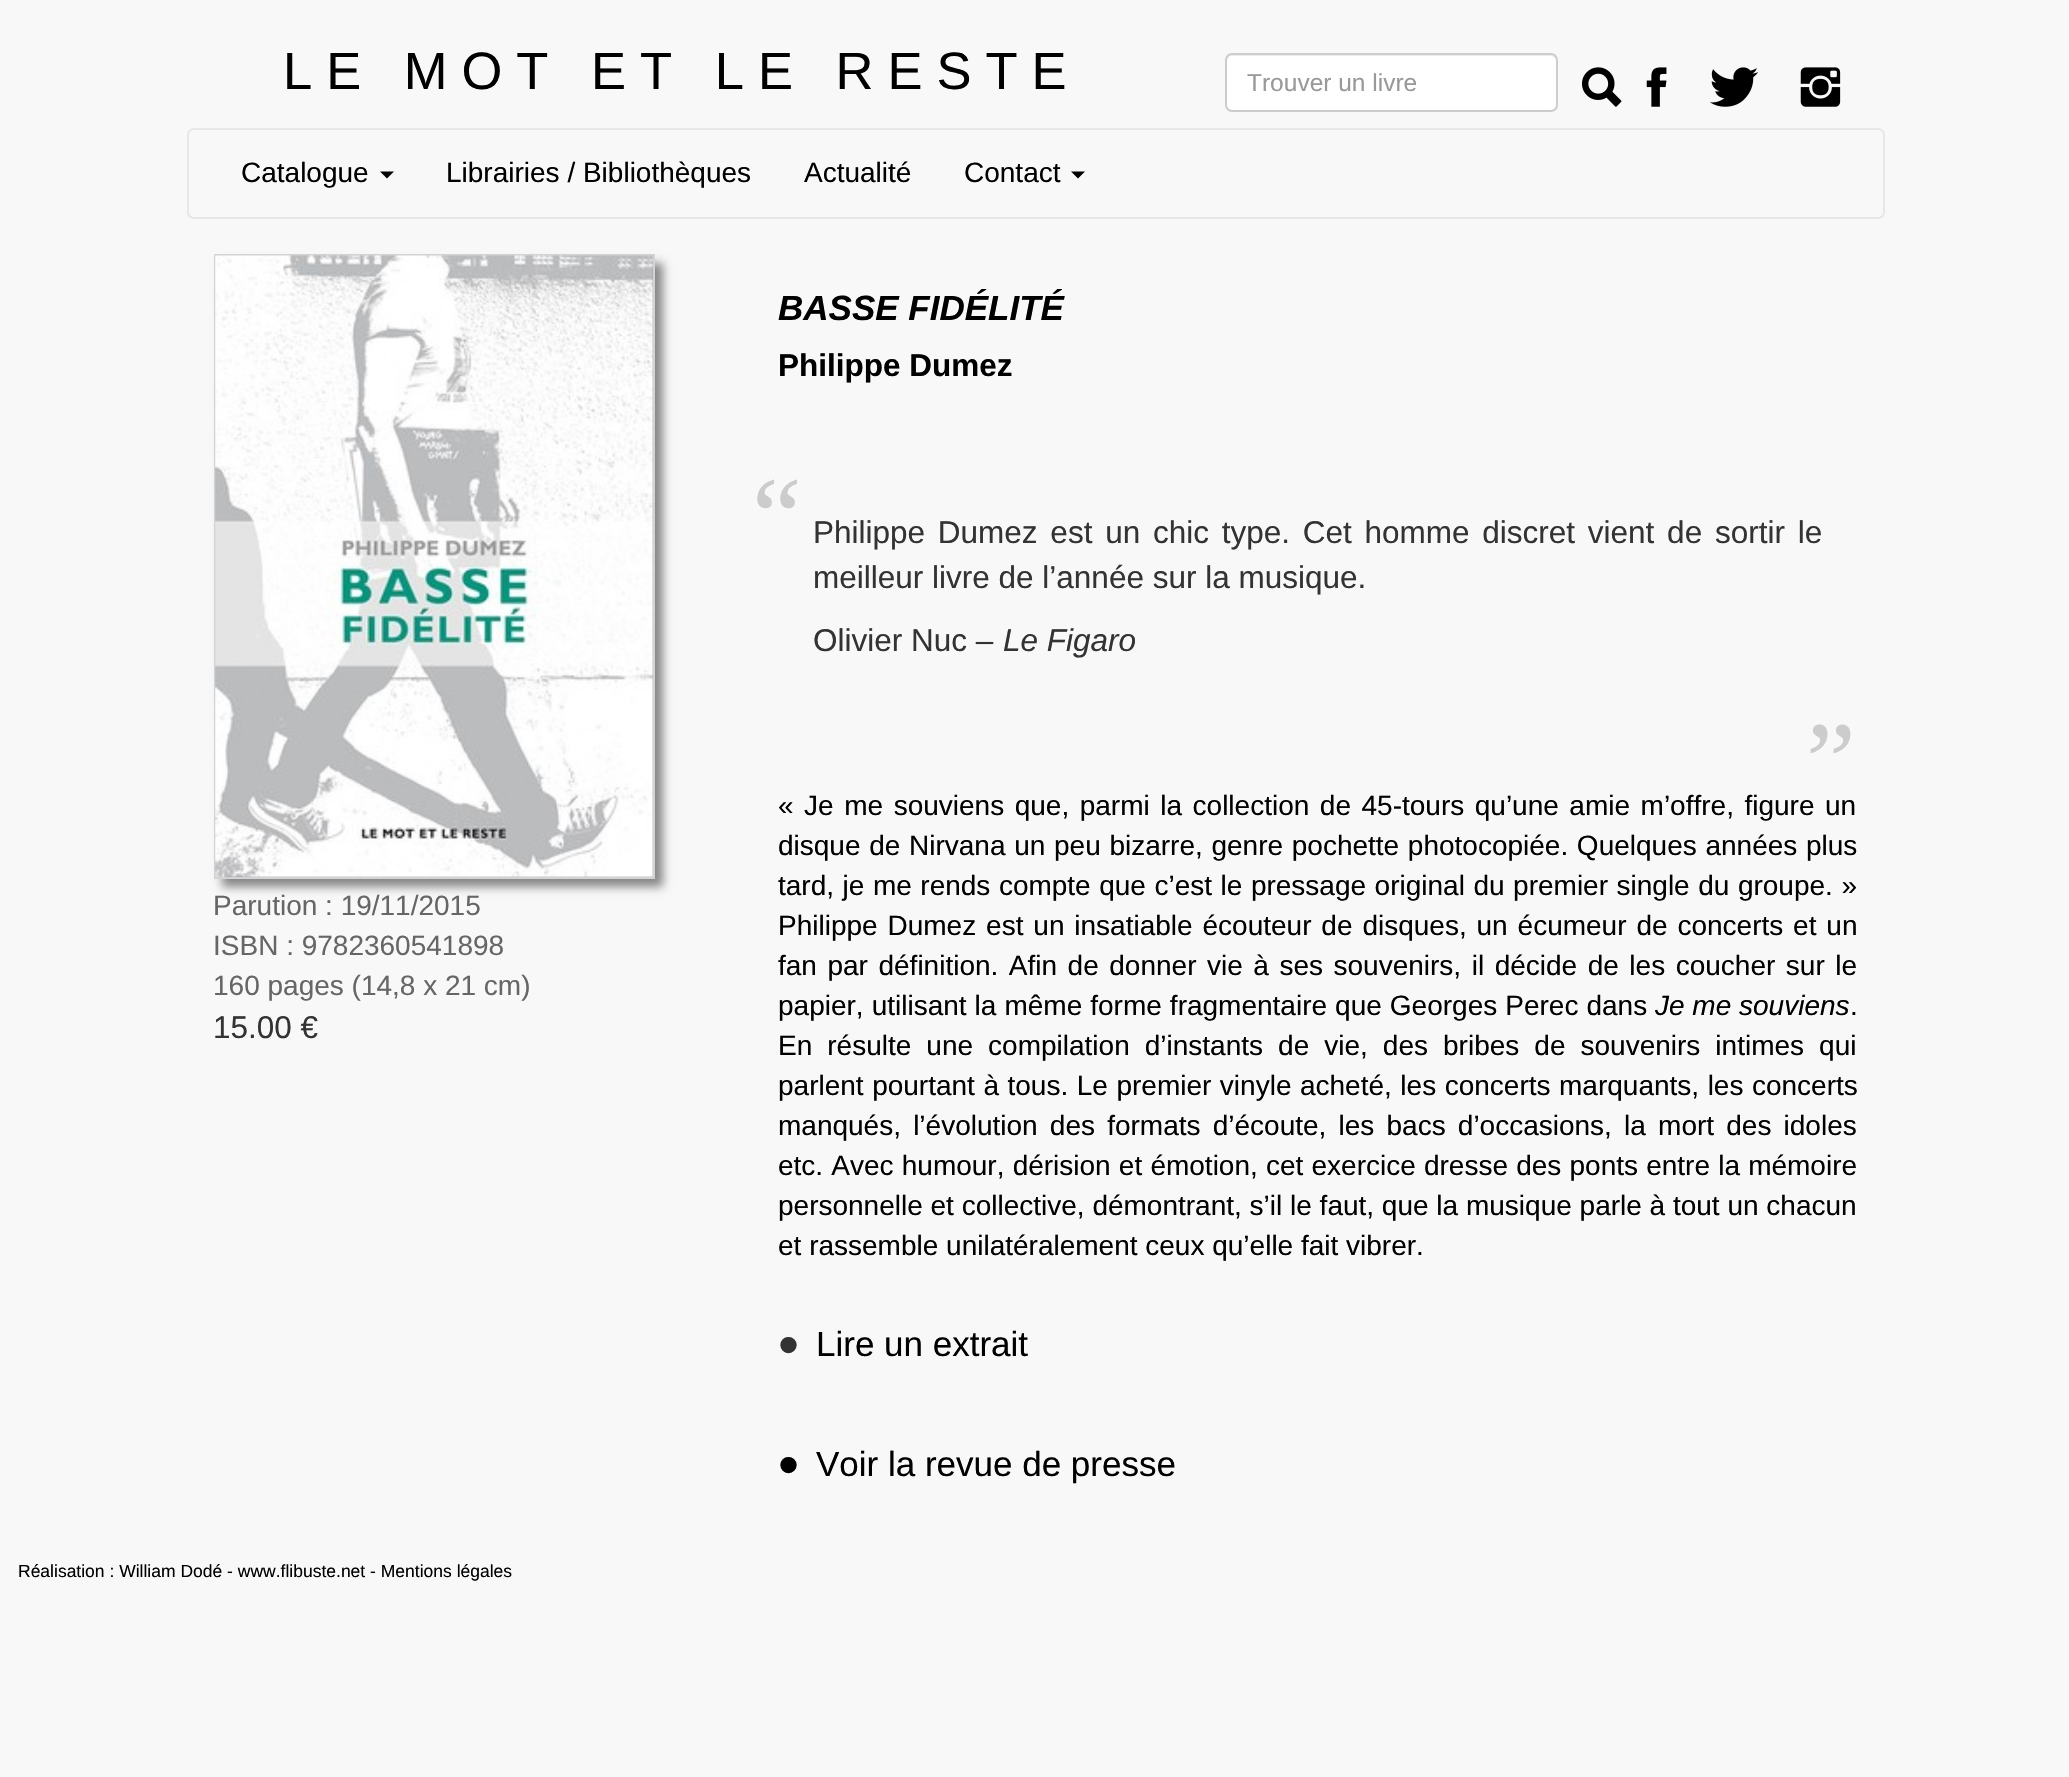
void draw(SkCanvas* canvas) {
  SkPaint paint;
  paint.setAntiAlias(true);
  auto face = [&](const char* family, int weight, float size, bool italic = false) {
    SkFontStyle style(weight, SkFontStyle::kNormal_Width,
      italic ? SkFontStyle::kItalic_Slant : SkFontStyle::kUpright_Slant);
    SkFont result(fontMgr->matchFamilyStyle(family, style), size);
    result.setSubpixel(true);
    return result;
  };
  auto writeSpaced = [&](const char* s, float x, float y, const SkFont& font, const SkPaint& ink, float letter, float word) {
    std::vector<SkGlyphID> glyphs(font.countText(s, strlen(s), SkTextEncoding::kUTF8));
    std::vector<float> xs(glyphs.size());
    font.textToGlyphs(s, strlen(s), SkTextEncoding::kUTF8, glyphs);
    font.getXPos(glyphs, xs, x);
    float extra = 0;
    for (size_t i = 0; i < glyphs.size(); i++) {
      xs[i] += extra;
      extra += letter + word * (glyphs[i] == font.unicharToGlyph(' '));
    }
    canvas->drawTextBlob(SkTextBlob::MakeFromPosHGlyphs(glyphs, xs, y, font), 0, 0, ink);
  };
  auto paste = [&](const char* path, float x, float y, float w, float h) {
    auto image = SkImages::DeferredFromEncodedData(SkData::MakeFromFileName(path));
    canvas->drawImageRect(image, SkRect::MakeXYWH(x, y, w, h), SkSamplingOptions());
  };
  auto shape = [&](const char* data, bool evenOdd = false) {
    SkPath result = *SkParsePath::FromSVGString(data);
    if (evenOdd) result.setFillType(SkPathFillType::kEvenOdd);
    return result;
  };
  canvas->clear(0xfff8f8f8);
  paint.setColor(0xffffffff);
  canvas->drawRoundRect(SkRect::MakeXYWH(1225, 53, 333, 59), 7, 7, paint);
  paint.setColor(0xffececec);
  canvas->drawPath(shape("M1232 56H1550C1553 56 1556 58 1556 61V59C1556 56 1554 54 1551 54H1232C1229 54 1227 56 1227 59V61C1227 58 1229 56 1232 56Z"), paint);
  paint.setStroke(true);
  paint.setStrokeWidth(2);
  paint.setColor(0xffcccccc);
  canvas->drawRoundRect(SkRect::MakeXYWH(1226, 54, 331, 57), 6, 6, paint);
  paste("img/1.png", 1582, 67, 40, 40);
  paste("img/2.png", 1646, 67, 21, 40);
  paste("img/3.png", 1710, 67, 48, 40);
  paste("img/4.png", 1800, 67, 41, 40);
  paint.setColor(0xffe7e7e7);
  canvas->drawRoundRect(SkRect::MakeXYWH(188, 129, 1696, 89), 6, 6, paint);
  paint.setStroke(false);
  paint.setColor(0xff000000);
  canvas->drawPath(shape("M380 171.5H394L387 178.5Z"), paint);
  canvas->drawPath(shape("M1071 171.5H1085L1078 178.5Z"), paint);
  paint.setColor(0xff888888);
  paint.setMaskFilter(SkMaskFilter::MakeBlur(kNormal_SkBlurStyle, 4.5f));
  canvas->drawRect(SkRect::MakeXYWH(222, 263, 441, 624), paint);
  paint.setMaskFilter(nullptr);
  paint.setStroke(true);
  paint.setColor(0xffd3d3d3);
  canvas->drawRect(SkRect::MakeXYWH(215, 255, 439, 623), paint);
  paste("img/5.png", 215, 255, 438, 622);
  auto f0 = face("Liberation Sans", 400, 52.5f);
  paint.setStroke(false);
  paint.setColor(0xff000000);
  writeSpaced("LE MOT ET LE RESTE", 283, 89, f0, paint, 14, 0);
  auto f1 = face("Liberation Sans", 400, 24.5f);
  paint.setColor(0xff999999);
  canvas->drawString("Trouver un livre", 1247, 91, f1, paint);
  auto f2 = face("Liberation Sans", 400, 28);
  paint.setColor(0xff000000);
  {
    const struct { const char* s; float x, y; } items[] = {
      {"Catalogue", 241, 182},
      {"Librairies / Bibliothèques", 446, 182},
      {"Actualité", 804, 182},
      {"Contact", 964, 182},
    };
    for (auto [s, x, y] : items) {
      canvas->drawString(s, x, y, f2, paint);
    }
  }
  paint.setColor(0xff666666);
  {
    const struct { const char* s; float x, y; } items[] = {
      {"Parution : 19/11/2015", 213, 915},
      {"ISBN : 9782360541898", 213, 955},
      {"160 pages (14,8 x 21 cm)", 213, 995},
    };
    for (auto [s, x, y] : items) {
      canvas->drawString(s, x, y, f2, paint);
    }
  }
  auto f3 = face("Liberation Sans", 400, 31.5f);
  paint.setColor(0xff333333);
  canvas->drawString("15.00 €", 213, 1038, f3, paint);
  auto f4 = face("Liberation Sans", 700, 35, true);
  paint.setColor(0xff000000);
  canvas->drawString("BASSE FIDÉLITÉ", 778, 320, f4, paint);
  auto f5 = face("Liberation Sans", 700, 31.5f);
  canvas->drawString("Philippe Dumez", 778, 376, f5, paint);
  auto f6 = face("Liberation Serif", 400, 112);
  paint.setColor(0xffcccccc);
  canvas->drawString("“", 752, 554, f6, paint);
  paint.setColor(0xff333333);
  writeSpaced("Philippe Dumez est un chic type. Cet homme discret vient de sortir le", 813, 543, f3, paint, 0, 4);
  canvas->drawString("meilleur livre de l’année sur la musique.", 813, 588, f3, paint);
  canvas->drawString("Olivier Nuc –", 813, 651, f3, paint);
  auto f7 = face("Liberation Sans", 400, 31.5f, true);
  canvas->drawString("Le Figaro", 1003, 651, f7, paint);
  paint.setColor(0xffcccccc);
  canvas->drawString("”", 1806, 799, f6, paint);
  paint.setColor(0xff000000);
  writeSpaced("« Je me souviens que, parmi la collection de 45-tours qu’une amie m’offre, figure un", 778, 815, f2, paint, 0, 2.75f);
  writeSpaced("disque de Nirvana un peu bizarre, genre pochette photocopiée. Quelques années plus", 778, 855, f2, paint, 0, 0.9f);
  writeSpaced("tard, je me rends compte que c’est le pressage original du premier single du groupe. »", 778, 895, f2, paint, 0, 0.75f);
  writeSpaced("Philippe Dumez est un insatiable écouteur de disques, un écumeur de concerts et un", 778, 935, f2, paint, 0, 2.1f);
  writeSpaced("fan par définition. Afin de donner vie à ses souvenirs, il décide de les coucher sur le", 778, 975, f2, paint, 0, 2.75f);
  writeSpaced("papier, utilisant la même forme fragmentaire que Georges Perec dans", 778, 1015, f2, paint, 0, 0.25f);
  auto f8 = face("Liberation Sans", 400, 28, true);
  canvas->drawString("Je me souviens", 1655, 1015, f8, paint);
  canvas->drawString(".", 1850, 1015, f2, paint);
  writeSpaced("En résulte une compilation d’instants de vie, des bribes de souvenirs intimes qui", 778, 1055, f2, paint, 0, 7.25f);
  writeSpaced("parlent pourtant à tous. Le premier vinyle acheté, les concerts marquants, les concerts", 778, 1095, f2, paint, 0, 0.75f);
  writeSpaced("manqués, l’évolution des formats d’écoute, les bacs d’occasions, la mort des idoles", 778, 1135, f2, paint, 0, 4.4f);
  writeSpaced("etc. Avec humour, dérision et émotion, cet exercice dresse des ponts entre la mémoire", 778, 1175, f2, paint, 0, 0.4f);
  canvas->drawString("personnelle et collective, démontrant, s’il le faut, que la musique parle à tout un chacun", 778, 1215, f2, paint);
  canvas->drawString("et rassemble unilatéralement ceux qu’elle fait vibrer.", 778, 1255, f2, paint);
  auto f9 = face("Liberation Sans", 400, 60);
  paint.setColor(0xff333333);
  canvas->drawString("•", 778, 1365, f9, paint);
  auto f10 = face("Liberation Sans", 400, 35);
  paint.setColor(0xff000000);
  canvas->drawString("Lire un extrait", 816, 1356, f10, paint);
  canvas->drawString("•", 778, 1485, f9, paint);
  canvas->drawString("Voir la revue de presse", 816, 1476, f10, paint);
  auto f11 = face("Liberation Sans", 400, 17.5f);
  canvas->drawString("Réalisation : William Dodé - www.flibuste.net - Mentions légales", 18, 1577, f11, paint);
}
